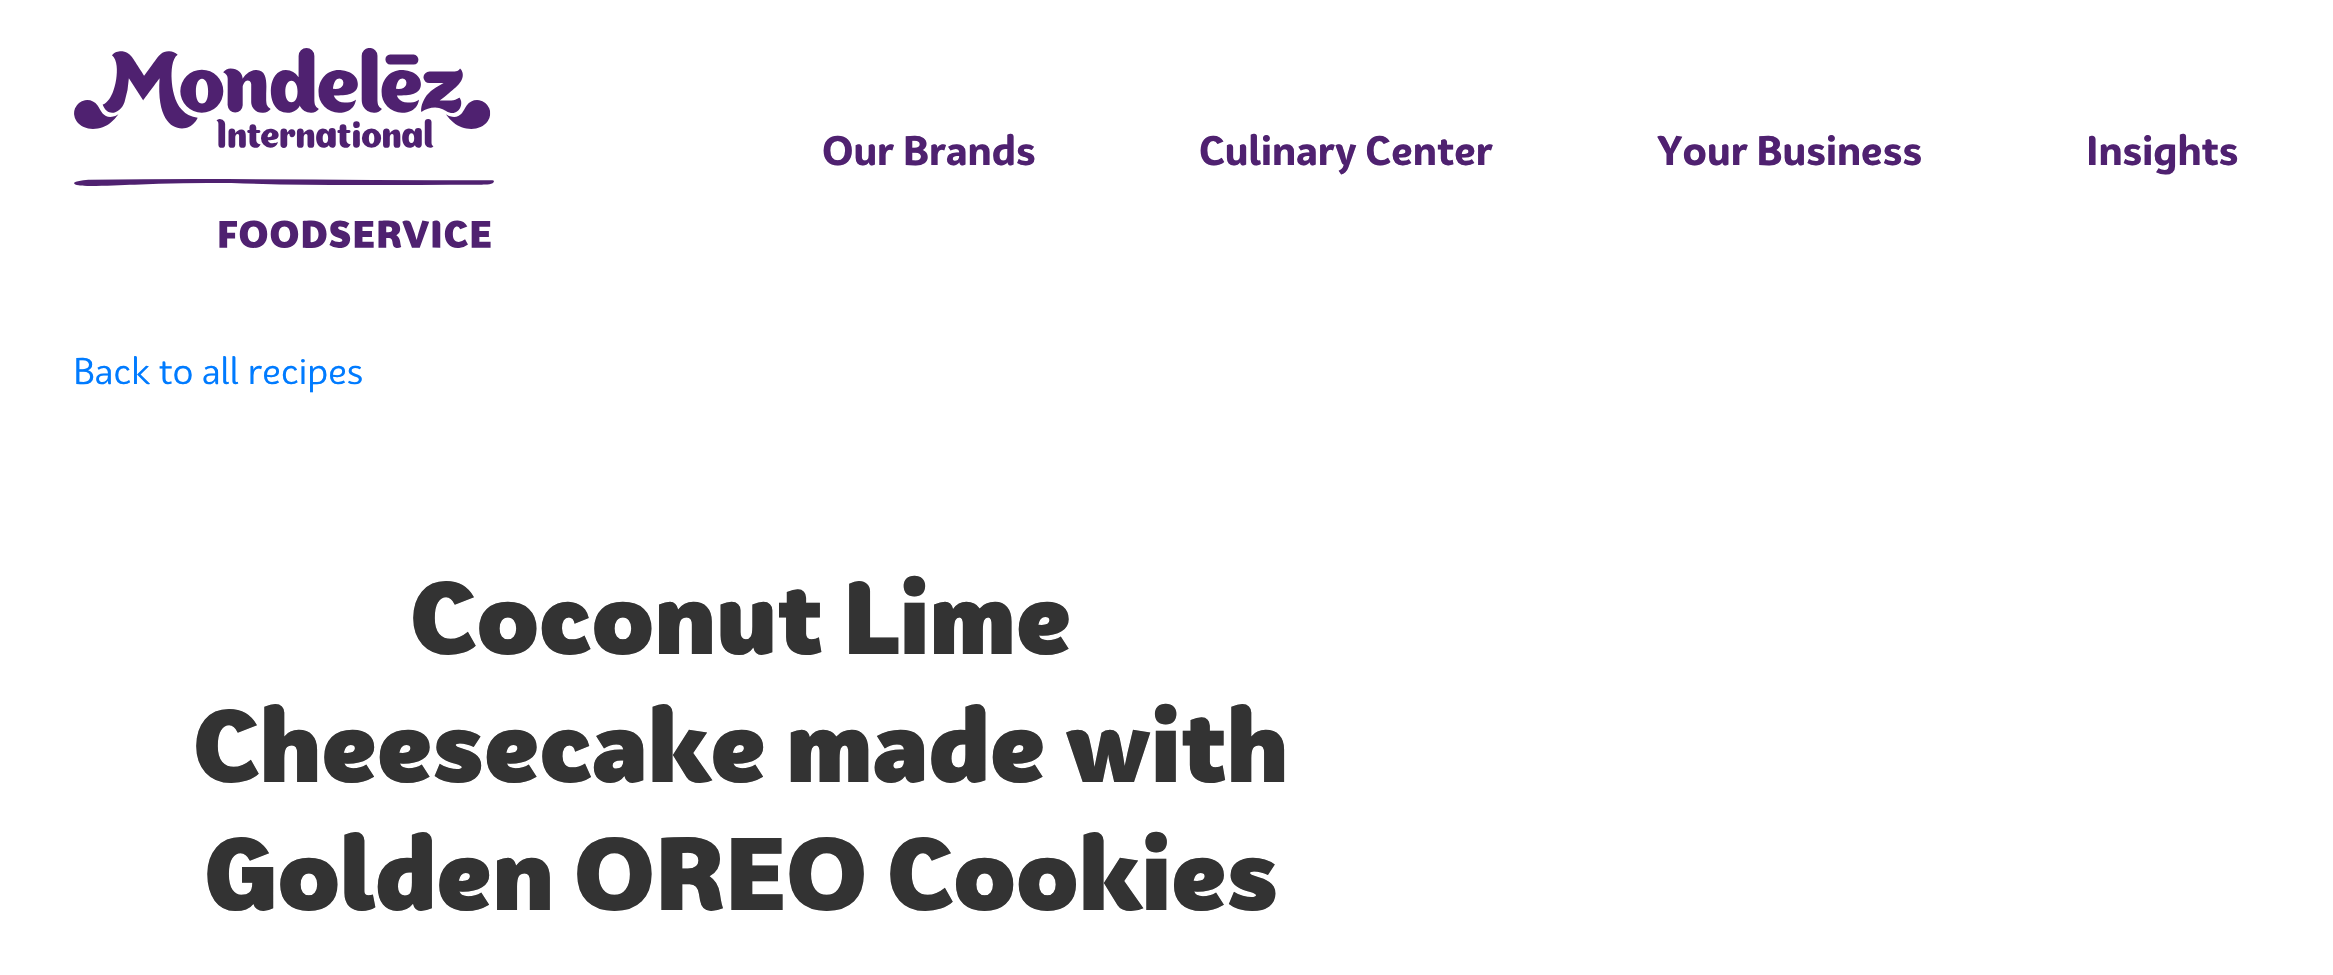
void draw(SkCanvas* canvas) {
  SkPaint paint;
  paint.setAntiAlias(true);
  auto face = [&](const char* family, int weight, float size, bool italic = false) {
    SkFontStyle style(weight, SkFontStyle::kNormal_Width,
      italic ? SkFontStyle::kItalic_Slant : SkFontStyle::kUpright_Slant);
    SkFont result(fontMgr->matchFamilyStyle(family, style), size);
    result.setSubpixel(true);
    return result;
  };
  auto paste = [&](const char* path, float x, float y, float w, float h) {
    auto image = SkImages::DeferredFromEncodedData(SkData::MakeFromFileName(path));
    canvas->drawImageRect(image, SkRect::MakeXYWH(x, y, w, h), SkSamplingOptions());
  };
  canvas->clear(0xffffffff);
  paste("img/1.png", 74, 48, 420, 200);
  auto f0 = face("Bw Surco", 700, 40);
  paint.setColor(0xff4f2170);
  {
    const struct { const char* s; float x, y; } items[] = {
      {"Our Brands", 822, 165},
      {"Culinary Center", 1199, 165},
      {"Your Business", 1657, 165},
      {"Insights", 2086, 165},
    };
    for (auto [s, x, y] : items) {
      canvas->drawString(s, x, y, f0, paint);
    }
  }
  auto f1 = face("Bw Surco", 400, 36);
  paint.setColor(0xff007bff);
  canvas->drawString("Back to all recipes", 73, 384, f1, paint);
  auto f2 = face("Bw Surco", 900, 100);
  paint.setColor(0xff333333);
  {
    const struct { const char* s; float x, y; } items[] = {
      {"Coconut Lime", 410, 654},
      {"Cheesecake made with", 193, 782},
      {"Golden OREO Cookies", 204, 910},
    };
    for (auto [s, x, y] : items) {
      canvas->drawString(s, x, y, f2, paint);
    }
  }
}
